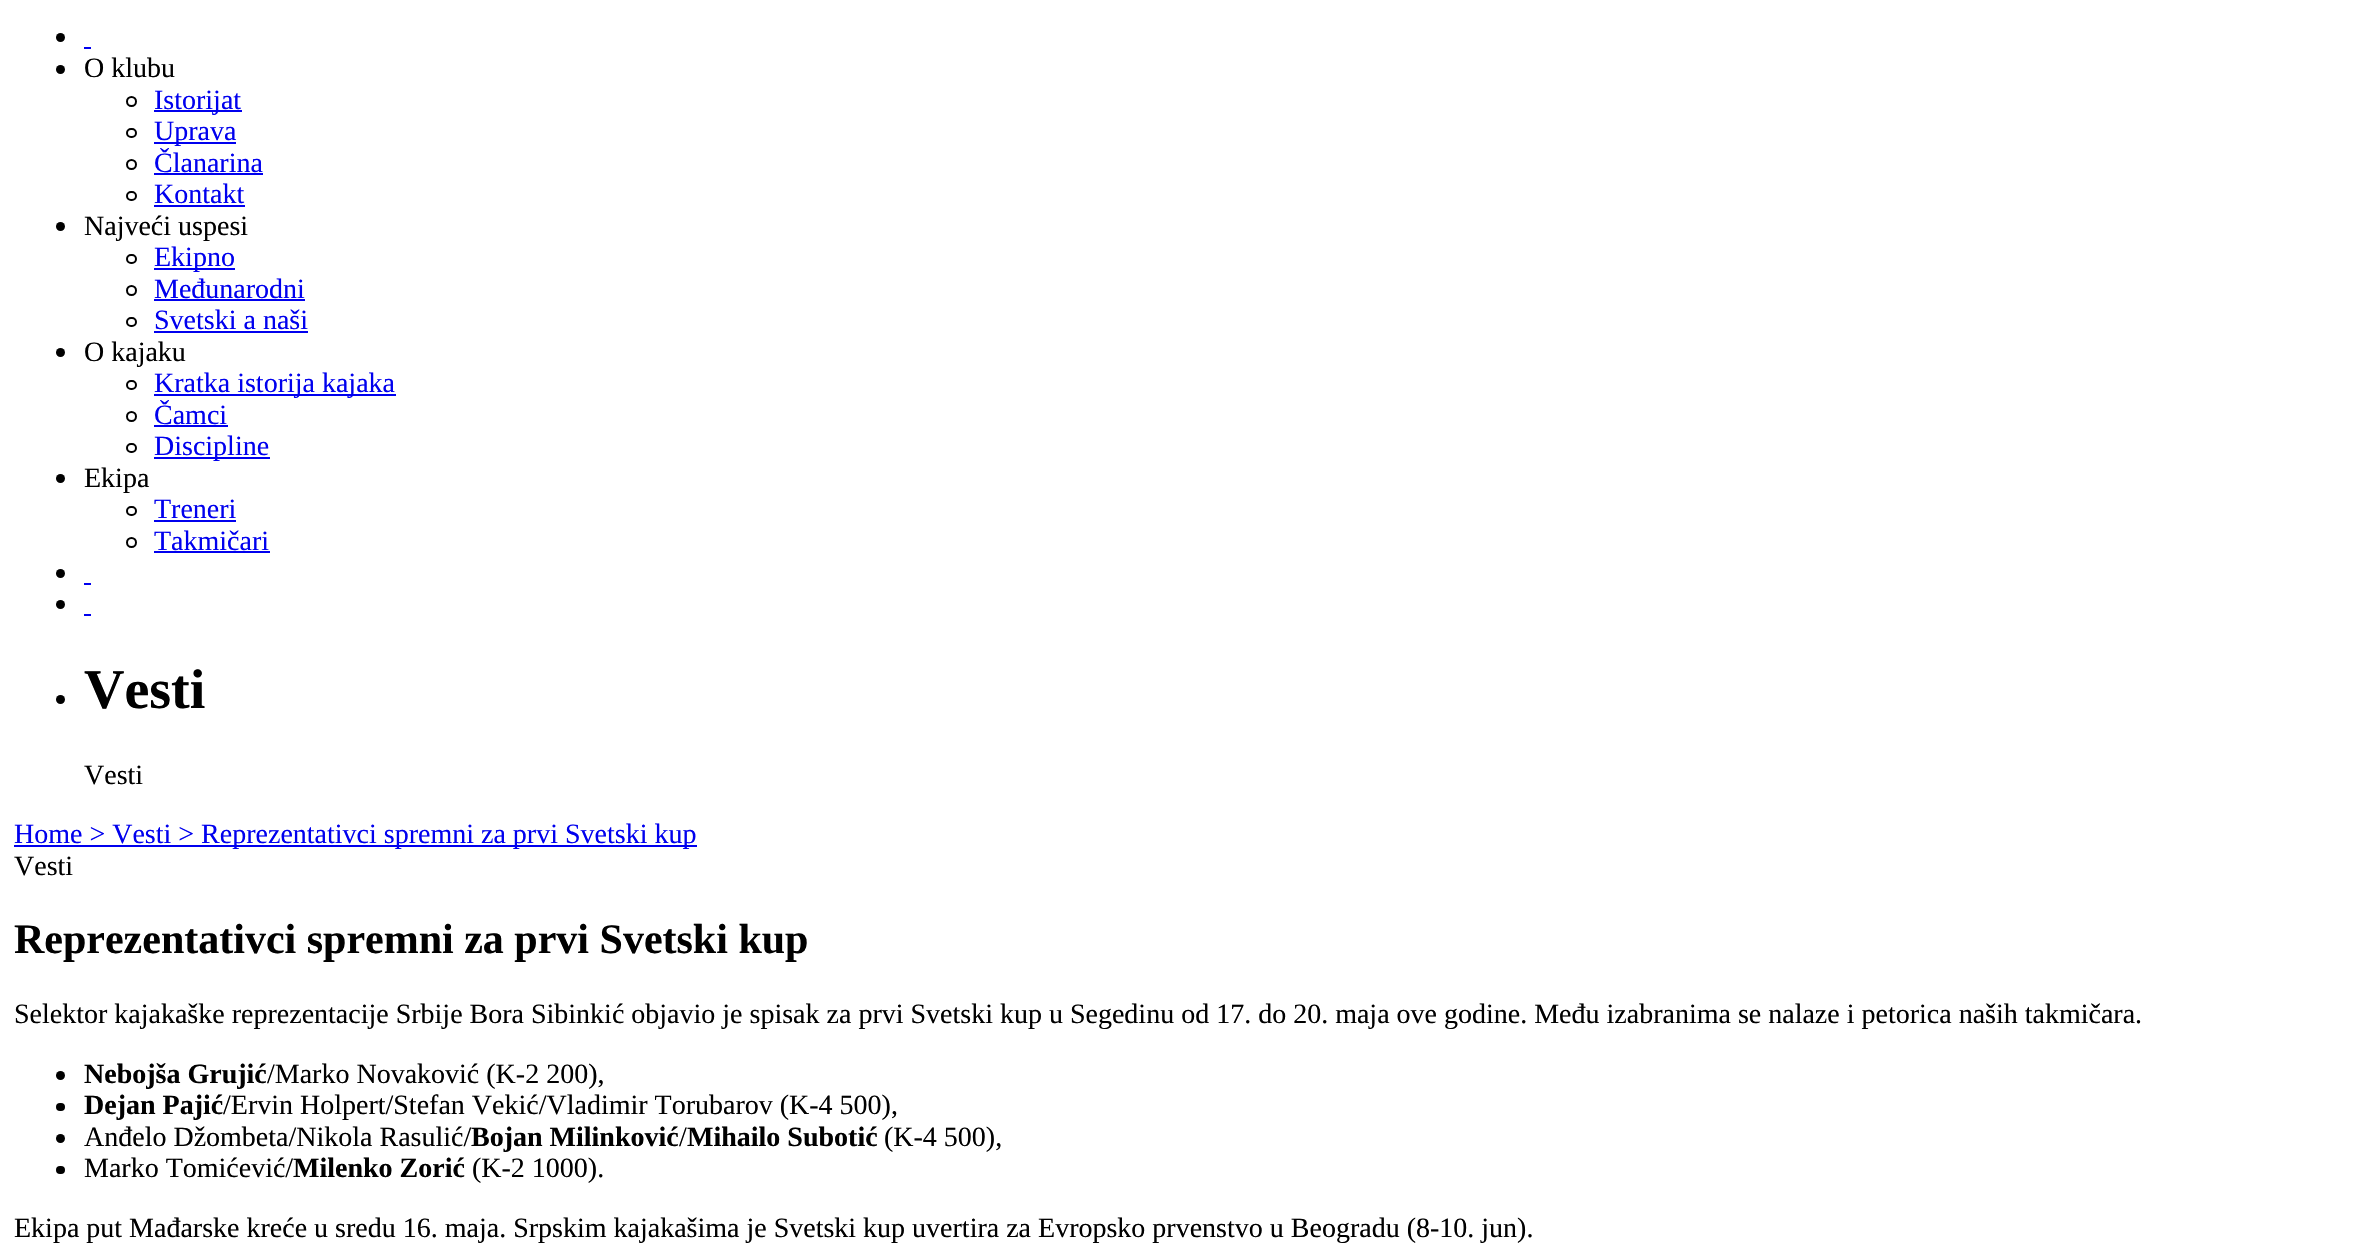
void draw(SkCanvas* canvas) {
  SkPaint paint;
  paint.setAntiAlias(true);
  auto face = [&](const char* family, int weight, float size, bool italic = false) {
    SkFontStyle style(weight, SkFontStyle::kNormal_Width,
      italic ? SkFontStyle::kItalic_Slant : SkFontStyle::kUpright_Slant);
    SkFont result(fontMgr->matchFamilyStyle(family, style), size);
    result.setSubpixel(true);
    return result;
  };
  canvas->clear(0xffffffff);
  paint.setColor(0xff000000);
  canvas->drawCircle(60.5f, 37.5f, 4.5f, paint);
  paint.setColor(0xff0000ee);
  canvas->drawRect(SkRect::MakeXYWH(84, 47, 7, 2), paint);
  paint.setColor(0xff000000);
  canvas->drawCircle(60.5f, 69.5f, 4.5f, paint);
  paint.setStroke(true);
  paint.setStrokeWidth(2);
  canvas->drawCircle(131.5f, 101.5f, 4.5f, paint);
  paint.setStroke(false);
  paint.setColor(0xff0000ee);
  canvas->drawRect(SkRect::MakeXYWH(154, 110, 88, 2), paint);
  paint.setStroke(true);
  paint.setColor(0xff000000);
  canvas->drawRoundRect(SkRect::MakeXYWH(127, 129, 9, 8), 4, 4, paint);
  paint.setStroke(false);
  paint.setColor(0xff0000ee);
  canvas->drawRect(SkRect::MakeXYWH(154, 142, 82, 2), paint);
  paint.setStroke(true);
  paint.setColor(0xff000000);
  canvas->drawCircle(131.5f, 164.5f, 4.5f, paint);
  paint.setStroke(false);
  paint.setColor(0xff0000ee);
  canvas->drawRect(SkRect::MakeXYWH(154, 173, 109, 2), paint);
  paint.setStroke(true);
  paint.setColor(0xff000000);
  canvas->drawRoundRect(SkRect::MakeXYWH(127, 192, 9, 8), 4, 4, paint);
  paint.setStroke(false);
  paint.setColor(0xff0000ee);
  canvas->drawRect(SkRect::MakeXYWH(154, 205, 91, 2), paint);
  paint.setColor(0xff000000);
  canvas->drawCircle(60.5f, 226.5f, 4.5f, paint);
  paint.setStroke(true);
  canvas->drawRoundRect(SkRect::MakeXYWH(127, 255, 9, 8), 4, 4, paint);
  paint.setStroke(false);
  paint.setColor(0xff0000ee);
  canvas->drawRect(SkRect::MakeXYWH(154, 268, 81, 2), paint);
  paint.setStroke(true);
  paint.setColor(0xff000000);
  canvas->drawCircle(131.5f, 290.5f, 4.5f, paint);
  paint.setStroke(false);
  paint.setColor(0xff0000ee);
  canvas->drawRect(SkRect::MakeXYWH(154, 299, 151, 2), paint);
  paint.setStroke(true);
  paint.setColor(0xff000000);
  canvas->drawRoundRect(SkRect::MakeXYWH(127, 318, 9, 8), 4, 4, paint);
  paint.setStroke(false);
  paint.setColor(0xff0000ee);
  canvas->drawRect(SkRect::MakeXYWH(154, 331, 154, 2), paint);
  paint.setColor(0xff000000);
  canvas->drawCircle(60.5f, 352.5f, 4.5f, paint);
  paint.setStroke(true);
  canvas->drawRoundRect(SkRect::MakeXYWH(127, 381, 9, 8), 4, 4, paint);
  paint.setStroke(false);
  paint.setColor(0xff0000ee);
  canvas->drawRect(SkRect::MakeXYWH(154, 394, 242, 2), paint);
  paint.setStroke(true);
  paint.setColor(0xff000000);
  canvas->drawCircle(131.5f, 416.5f, 4.5f, paint);
  paint.setStroke(false);
  paint.setColor(0xff0000ee);
  canvas->drawRect(SkRect::MakeXYWH(154, 425, 74, 2), paint);
  paint.setStroke(true);
  paint.setColor(0xff000000);
  canvas->drawRoundRect(SkRect::MakeXYWH(127, 444, 9, 8), 4, 4, paint);
  paint.setStroke(false);
  paint.setColor(0xff0000ee);
  canvas->drawRect(SkRect::MakeXYWH(154, 457, 116, 2), paint);
  paint.setColor(0xff000000);
  canvas->drawCircle(60.5f, 478.5f, 4.5f, paint);
  paint.setStroke(true);
  canvas->drawRoundRect(SkRect::MakeXYWH(127, 507, 9, 8), 4, 4, paint);
  paint.setStroke(false);
  paint.setColor(0xff0000ee);
  canvas->drawRect(SkRect::MakeXYWH(154, 520, 82, 2), paint);
  paint.setStroke(true);
  paint.setColor(0xff000000);
  canvas->drawCircle(131.5f, 542.5f, 4.5f, paint);
  paint.setStroke(false);
  paint.setColor(0xff0000ee);
  canvas->drawRect(SkRect::MakeXYWH(154, 551, 116, 2), paint);
  paint.setColor(0xff000000);
  canvas->drawCircle(60.5f, 573.5f, 4.5f, paint);
  paint.setColor(0xff0000ee);
  canvas->drawRect(SkRect::MakeXYWH(84, 583, 7, 2), paint);
  paint.setColor(0xff000000);
  canvas->drawCircle(60.5f, 604.5f, 4.5f, paint);
  paint.setColor(0xff0000ee);
  canvas->drawRect(SkRect::MakeXYWH(84, 614, 7, 2), paint);
  paint.setColor(0xff000000);
  canvas->drawCircle(60.5f, 699.5f, 4.5f, paint);
  paint.setColor(0xff0000ee);
  canvas->drawRect(SkRect::MakeXYWH(14, 845, 683, 2), paint);
  paint.setColor(0xff000000);
  canvas->drawCircle(60.5f, 1075.5f, 4.5f, paint);
  canvas->drawRoundRect(SkRect::MakeXYWH(56, 1103, 9, 8), 4, 4, paint);
  canvas->drawCircle(60.5f, 1138.5f, 4.5f, paint);
  canvas->drawRoundRect(SkRect::MakeXYWH(56, 1166, 9, 8), 4, 4, paint);
  auto f0 = face("Liberation Serif", 400, 28);
  canvas->drawString("O klubu", 84, 77, f0, paint);
  paint.setColor(0xff0000ee);
  {
    const struct { const char* s; float x, y; } items[] = {
      {"Istorijat", 154, 109},
      {"Uprava", 154, 140},
      {"Članarina", 154, 172},
      {"Kontakt", 154, 203},
    };
    for (auto [s, x, y] : items) {
      canvas->drawString(s, x, y, f0, paint);
    }
  }
  paint.setColor(0xff000000);
  canvas->drawString("Najveći uspesi", 84, 235, f0, paint);
  paint.setColor(0xff0000ee);
  {
    const struct { const char* s; float x, y; } items[] = {
      {"Ekipno", 154, 266},
      {"Međunarodni", 154, 298},
      {"Svetski a naši", 154, 329},
    };
    for (auto [s, x, y] : items) {
      canvas->drawString(s, x, y, f0, paint);
    }
  }
  paint.setColor(0xff000000);
  canvas->drawString("O kajaku", 84, 361, f0, paint);
  paint.setColor(0xff0000ee);
  {
    const struct { const char* s; float x, y; } items[] = {
      {"Kratka istorija kajaka", 154, 392},
      {"Čamci", 154, 424},
      {"Discipline", 154, 455},
    };
    for (auto [s, x, y] : items) {
      canvas->drawString(s, x, y, f0, paint);
    }
  }
  paint.setColor(0xff000000);
  canvas->drawString("Ekipa", 84, 487, f0, paint);
  paint.setColor(0xff0000ee);
  canvas->drawString("Treneri", 154, 518, f0, paint);
  canvas->drawString("Takmičari", 154, 550, f0, paint);
  auto f1 = face("Liberation Serif", 700, 56);
  paint.setColor(0xff000000);
  canvas->drawString("Vesti", 84, 708, f1, paint);
  canvas->drawString("Vesti", 84, 784, f0, paint);
  paint.setColor(0xff0000ee);
  canvas->drawString("Home > Vesti > Reprezentativci spremni za prvi Svetski kup", 14, 843, f0, paint);
  paint.setColor(0xff000000);
  canvas->drawString("Vesti", 14, 875, f0, paint);
  auto f2 = face("Liberation Serif", 700, 42);
  canvas->drawString("Reprezentativci spremni za prvi Svetski kup", 14, 953, f2, paint);
  canvas->drawString("Selektor kajakaške reprezentacije Srbije Bora Sibinkić objavio je spisak za prvi Svetski kup u Segedinu od 17. do 20. maja ove godine. Među izabranima se nalaze i petorica naših takmičara.", 14, 1023, f0, paint);
  auto f3 = face("Liberation Serif", 700, 28);
  canvas->drawString("Nebojša Grujić", 84, 1083, f3, paint);
  canvas->drawString("/Marko Novaković (K-2 200),", 267, 1083, f0, paint);
  canvas->drawString("Dejan Pajić", 84, 1114, f3, paint);
  canvas->drawString("/Ervin Holpert/Stefan Vekić/Vladimir Torubarov (K-4 500),", 223, 1114, f0, paint);
  canvas->drawString("Anđelo Džombeta/Nikola Rasulić/", 84, 1146, f0, paint);
  canvas->drawString("Bojan Milinković", 471, 1146, f3, paint);
  canvas->drawString("/", 679, 1146, f0, paint);
  canvas->drawString("Mihailo Subotić", 687, 1146, f3, paint);
  canvas->drawString("(K-4 500),", 884, 1146, f0, paint);
  canvas->drawString("Marko Tomićević/", 84, 1177, f0, paint);
  canvas->drawString("Milenko Zorić", 293, 1177, f3, paint);
  canvas->drawString("(K-2 1000).", 472, 1177, f0, paint);
  canvas->drawString("Ekipa put Mađarske kreće u sredu 16. maja. Srpskim kajakašima je Svetski kup uvertira za Evropsko prvenstvo u Beogradu (8-10. jun).", 14, 1237, f0, paint);
}
